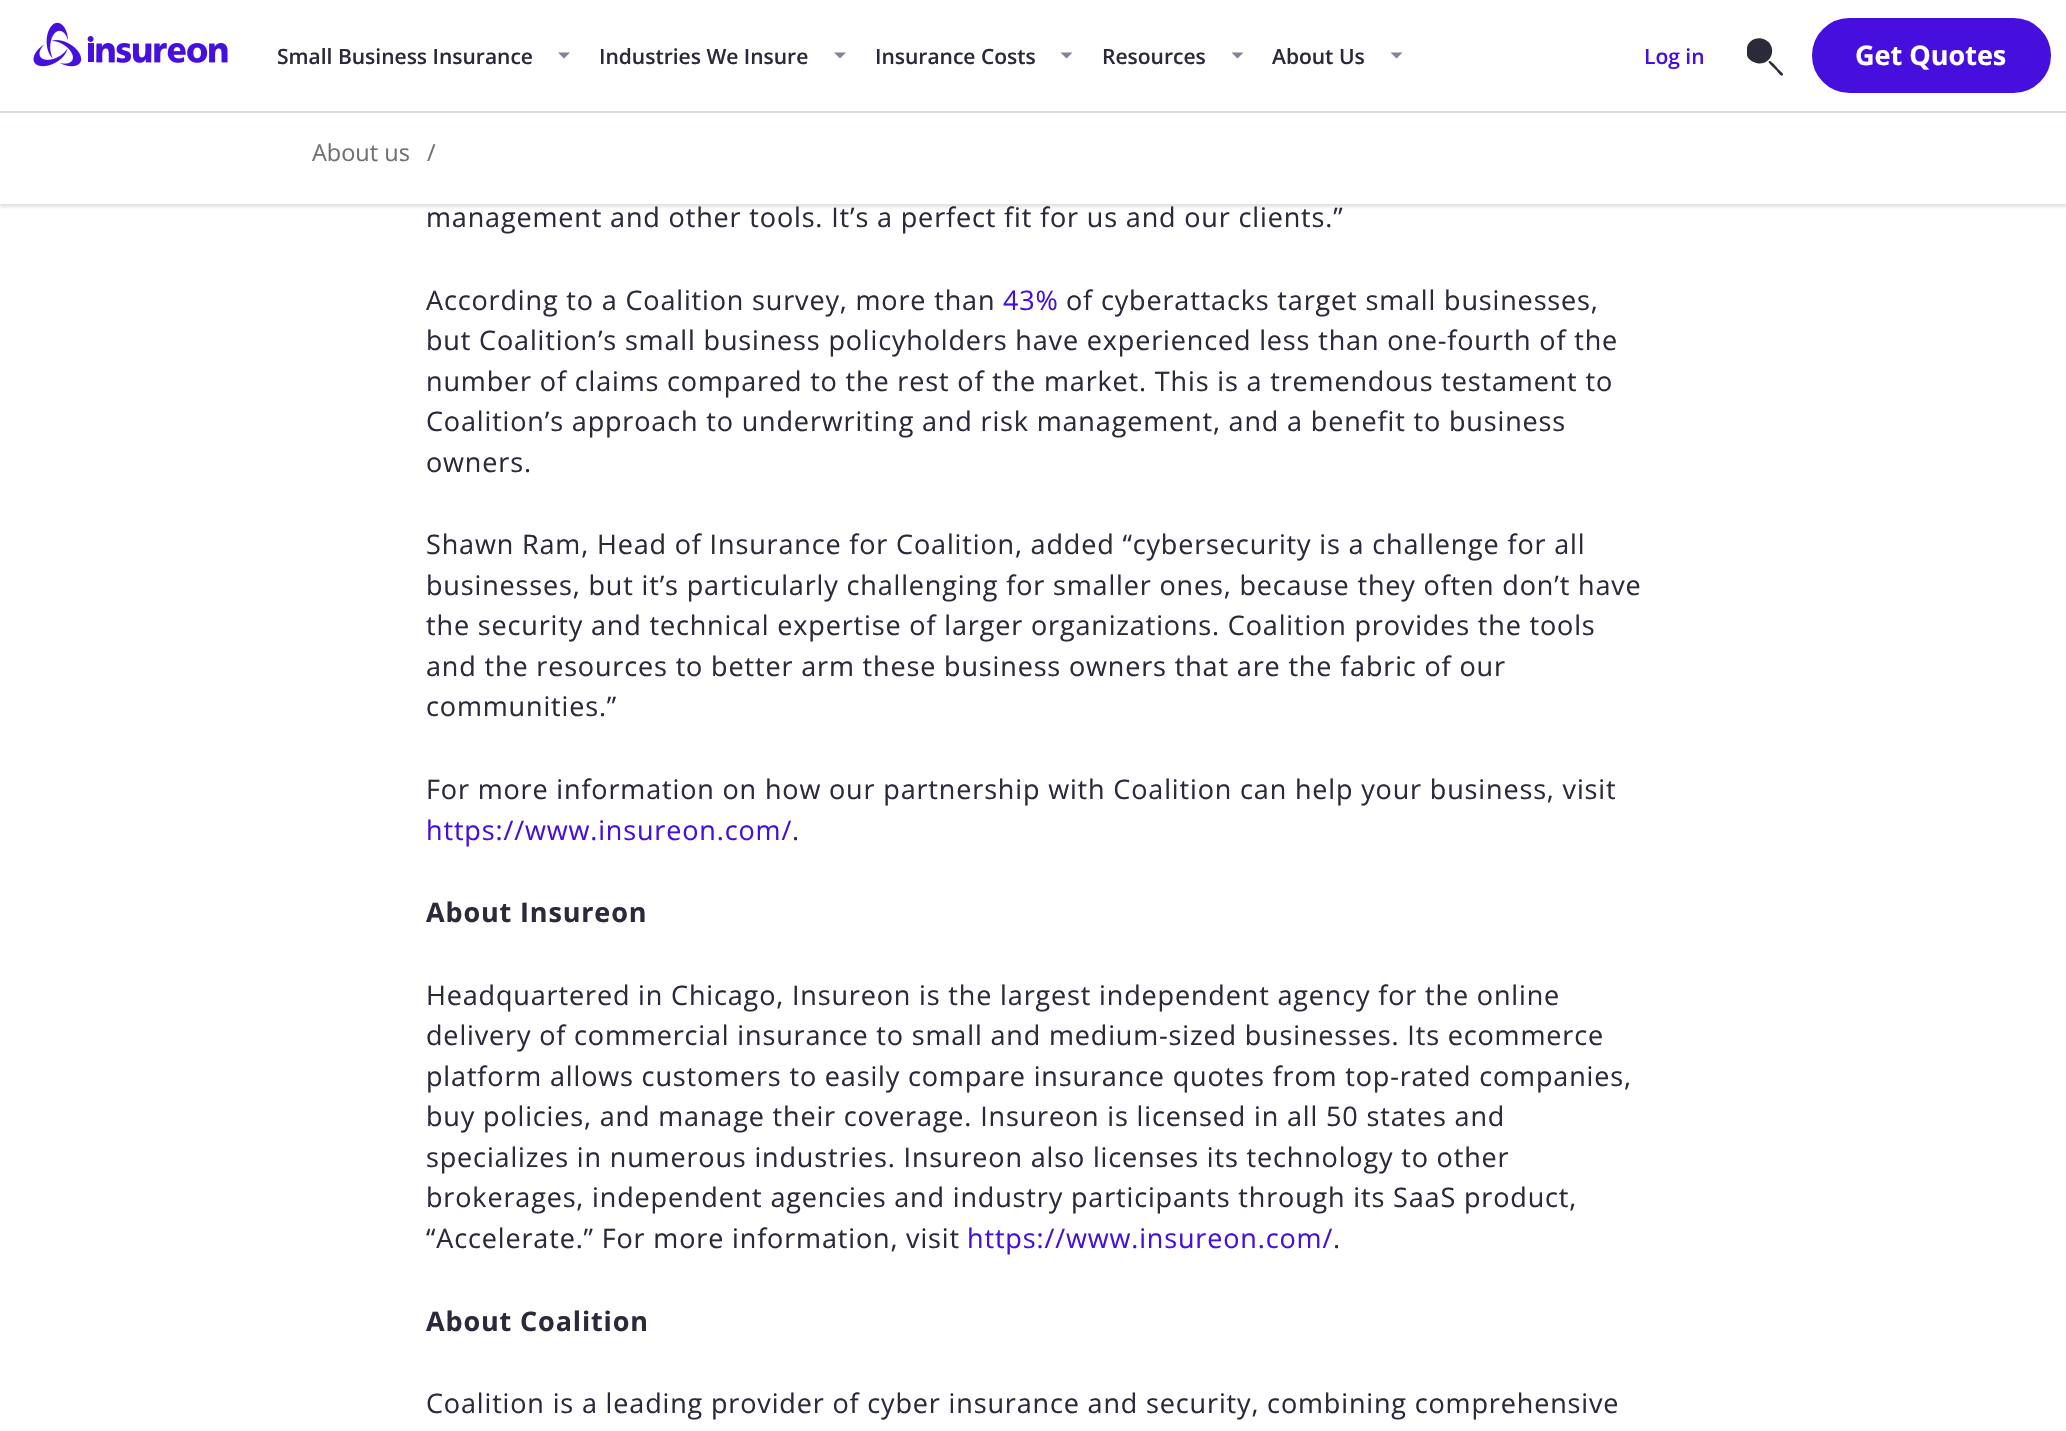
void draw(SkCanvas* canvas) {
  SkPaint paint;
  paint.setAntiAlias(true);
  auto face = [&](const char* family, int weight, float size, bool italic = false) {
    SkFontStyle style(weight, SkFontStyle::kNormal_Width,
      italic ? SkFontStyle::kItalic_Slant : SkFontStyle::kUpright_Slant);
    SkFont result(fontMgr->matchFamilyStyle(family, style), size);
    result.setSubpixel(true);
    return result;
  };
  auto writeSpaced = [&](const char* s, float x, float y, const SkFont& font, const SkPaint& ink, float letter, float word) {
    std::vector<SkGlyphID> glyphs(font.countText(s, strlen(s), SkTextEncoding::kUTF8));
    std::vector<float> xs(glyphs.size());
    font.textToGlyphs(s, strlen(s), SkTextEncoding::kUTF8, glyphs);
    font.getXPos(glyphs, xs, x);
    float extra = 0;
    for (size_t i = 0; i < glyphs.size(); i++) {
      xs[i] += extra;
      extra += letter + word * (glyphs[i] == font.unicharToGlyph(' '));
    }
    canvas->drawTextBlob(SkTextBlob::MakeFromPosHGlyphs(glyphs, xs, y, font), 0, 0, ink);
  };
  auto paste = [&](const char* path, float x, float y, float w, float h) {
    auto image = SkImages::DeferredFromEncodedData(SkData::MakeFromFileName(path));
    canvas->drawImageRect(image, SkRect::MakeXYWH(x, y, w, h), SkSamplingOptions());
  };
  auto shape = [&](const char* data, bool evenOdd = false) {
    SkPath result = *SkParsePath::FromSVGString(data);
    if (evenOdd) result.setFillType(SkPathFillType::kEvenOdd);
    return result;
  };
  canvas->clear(0xffffffff);
  paint.setColor(0x4d9b9b9b);
  paint.setMaskFilter(SkMaskFilter::MakeBlur(kNormal_SkBlurStyle, 1.5f));
  canvas->drawRect(SkRect::MakeXYWH(0, 105, 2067, 102), paint);
  paint.setMaskFilter(nullptr);
  paint.setColor(0xffffffff);
  canvas->drawRect(SkRect::MakeXYWH(0, 103, 2066, 8), paint);
  paint.setColor(0xffd9d8ea);
  canvas->drawRect(SkRect::MakeXYWH(0, 111, 2066, 2), paint);
  paste("img/1.png", 33, 22, 195, 45);
  paint.setColor(0xff84829c);
  canvas->drawPath(shape("M558 52.5H570L564 58.5Z"), paint);
  canvas->drawPath(shape("M834 52.5H846L840 58.5Z"), paint);
  canvas->drawPath(shape("M1060.5 52.5H1072.5L1066.5 58.5Z"), paint);
  canvas->drawPath(shape("M1231.5 52.5H1243.5L1237.5 58.5Z"), paint);
  canvas->drawPath(shape("M1390.5 52.5H1402.5L1396.5 58.5Z"), paint);
  paint.setColor(0xff2b2a3a);
  canvas->drawPath(shape("M1769.5 61C1771 60.5 1777.5 68 1778.5 69.5C1782 72.5 1785 75 1782 75.5C1780.5 76 1777.5 72 1777 71L1773 67C1770 64 1767 61.5 1769.5 61ZM1750.5 41.5C1747 45 1747 46.5 1747 51V55C1747.5 59.5 1755 63.5 1759 63.5C1770.5 64 1776.5 50.5 1768.5 42C1763.5 37 1755.5 37 1750.5 41.5Z", true), paint);
  paint.setColor(0xff470fdd);
  canvas->drawRoundRect(SkRect::MakeXYWH(1813.5f, 19.5f, 236, 72), 36, 36, paint);
  paint.setStroke(true);
  paint.setStrokeWidth(3);
  canvas->drawRoundRect(SkRect::MakeXYWH(1813.5f, 19.5f, 236, 72), 36, 36, paint);
  paint.setStroke(false);
  paint.setColor(0xffffffff);
  canvas->drawRect(SkRect::MakeXYWH(0, 113, 2066, 91), paint);
  auto f0 = face("Open Sans", 600, 21);
  paint.setColor(0xff2b2a3a);
  {
    const struct { const char* s; float x, y; } items[] = {
      {"Small Business Insurance", 277, 64},
      {"Industries We Insure", 599, 64},
      {"Insurance Costs", 875, 64},
      {"Resources", 1102, 64},
      {"About Us", 1272, 64},
    };
    for (auto [s, x, y] : items) {
      canvas->drawString(s, x, y, f0, paint);
    }
  }
  paint.setColor(0xff470fdd);
  canvas->drawString("Log in", 1644, 64, f0, paint);
  auto f1 = face("Open Sans", 700, 27);
  paint.setColor(0xffffffff);
  canvas->drawString("Get Quotes", 1855, 65, f1, paint);
  auto f2 = face("Open Sans", 400, 23.5f);
  paint.setColor(0xff707070);
  canvas->drawString("About us", 312, 161, f2, paint);
  canvas->drawString("/", 427, 161, f2, paint);
  auto f3 = face("Open Sans", 400, 27);
  paint.setColor(0xff2b2a3a);
  writeSpaced("management and other tools. It’s a perfect fit for us and our clients.”", 426, 227, f3, paint, 0.85f, 0);
  writeSpaced("According to a Coalition survey, more than", 426, 310, f3, paint, 0.85f, 0);
  paint.setColor(0xff470fdd);
  writeSpaced("43%", 1003, 310, f3, paint, 0.85f, 0);
  paint.setColor(0xff2b2a3a);
  {
    const struct { const char* s; float x, y; } items[] = {
      {"of cyberattacks target small businesses,", 1066, 310},
      {"but Coalition’s small business policyholders have experienced less than one-fourth of the", 426, 350},
      {"number of claims compared to the rest of the market. This is a tremendous testament to", 426, 391},
      {"Coalition’s approach to underwriting and risk management, and a benefit to business", 426, 431},
      {"owners.", 426, 472},
      {"Shawn Ram, Head of Insurance for Coalition, added “cybersecurity is a challenge for all", 426, 554},
      {"businesses, but it’s particularly challenging for smaller ones, because they often don’t have", 426, 595},
      {"the security and technical expertise of larger organizations. Coalition provides the tools", 426, 635},
      {"and the resources to better arm these business owners that are the fabric of our", 426, 676},
      {"communities.”", 426, 716},
      {"For more information on how our partnership with Coalition can help your business, visit", 426, 799},
    };
    for (auto [s, x, y] : items) {
      writeSpaced(s, x, y, f3, paint, 0.85f, 0);
    }
  }
  paint.setColor(0xff470fdd);
  writeSpaced("https://www.insureon.com/", 426, 840, f3, paint, 0.85f, 0);
  paint.setColor(0xff2b2a3a);
  writeSpaced(".", 792, 840, f3, paint, 0.85f, 0);
  writeSpaced("About Insureon", 426, 922, f1, paint, 0.85f, 0);
  {
    const struct { const char* s; float x, y; } items[] = {
      {"Headquartered in Chicago, Insureon is the largest independent agency for the online", 426, 1005},
      {"delivery of commercial insurance to small and medium-sized businesses. Its ecommerce", 426, 1045},
      {"platform allows customers to easily compare insurance quotes from top-rated companies,", 426, 1086},
      {"buy policies, and manage their coverage. Insureon is licensed in all 50 states and", 426, 1126},
      {"specializes in numerous industries. Insureon also licenses its technology to other", 426, 1167},
      {"brokerages, independent agencies and industry participants through its SaaS product,", 426, 1207},
      {"“Accelerate.” For more information, visit", 426, 1248},
    };
    for (auto [s, x, y] : items) {
      writeSpaced(s, x, y, f3, paint, 0.85f, 0);
    }
  }
  paint.setColor(0xff470fdd);
  writeSpaced("https://www.insureon.com/", 967, 1248, f3, paint, 0.85f, 0);
  paint.setColor(0xff2b2a3a);
  writeSpaced(".", 1333, 1248, f3, paint, 0.85f, 0);
  writeSpaced("About Coalition", 426, 1331, f1, paint, 0.85f, 0);
  writeSpaced("Coalition is a leading provider of cyber insurance and security, combining comprehensive", 426, 1413, f3, paint, 0.85f, 0);
}
